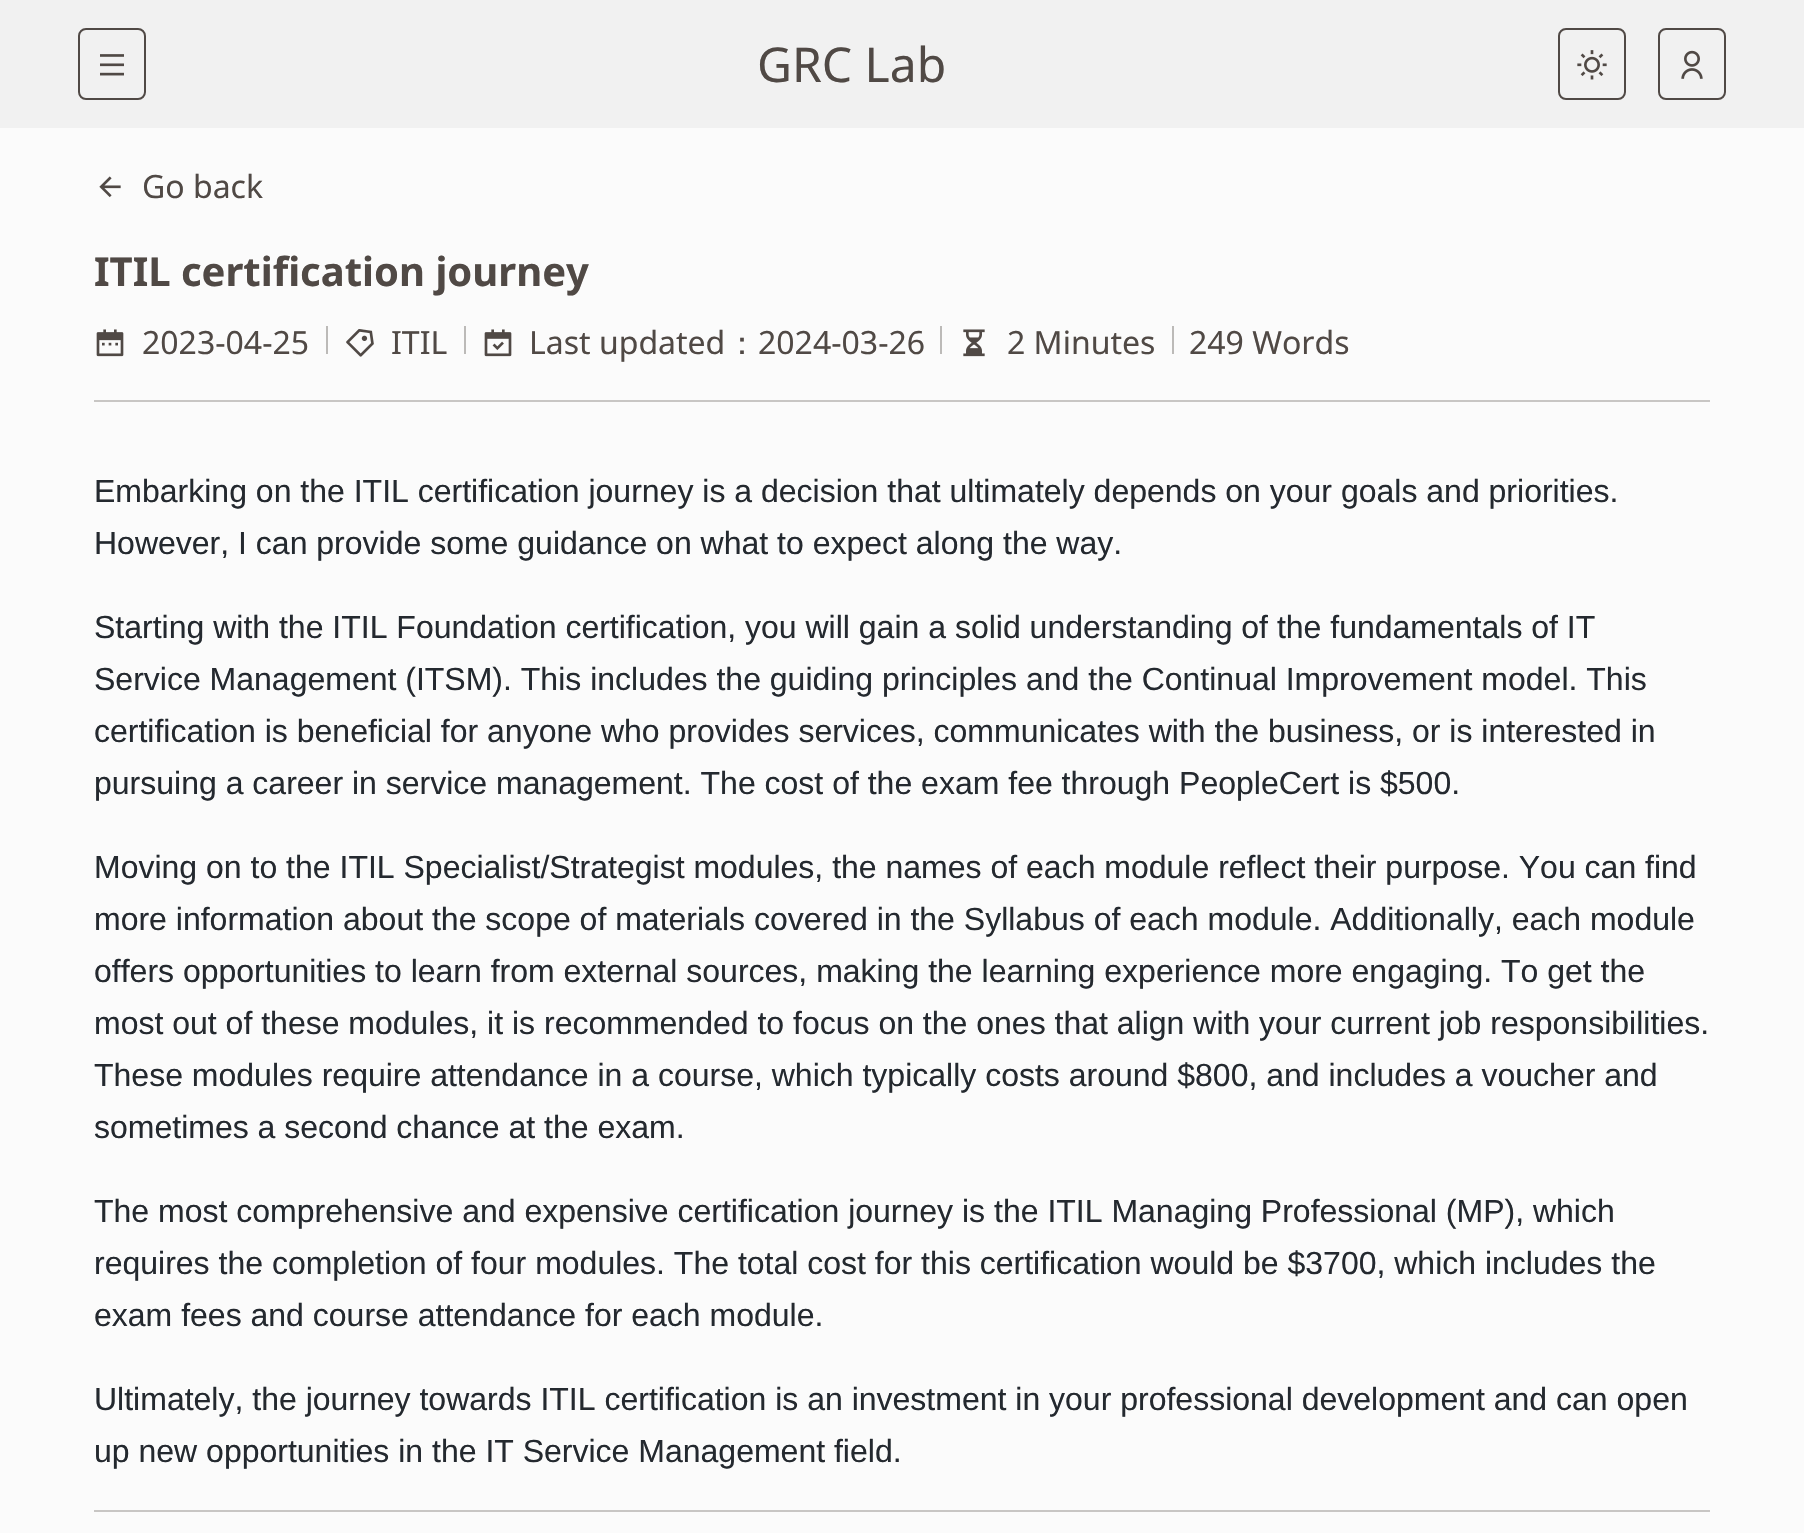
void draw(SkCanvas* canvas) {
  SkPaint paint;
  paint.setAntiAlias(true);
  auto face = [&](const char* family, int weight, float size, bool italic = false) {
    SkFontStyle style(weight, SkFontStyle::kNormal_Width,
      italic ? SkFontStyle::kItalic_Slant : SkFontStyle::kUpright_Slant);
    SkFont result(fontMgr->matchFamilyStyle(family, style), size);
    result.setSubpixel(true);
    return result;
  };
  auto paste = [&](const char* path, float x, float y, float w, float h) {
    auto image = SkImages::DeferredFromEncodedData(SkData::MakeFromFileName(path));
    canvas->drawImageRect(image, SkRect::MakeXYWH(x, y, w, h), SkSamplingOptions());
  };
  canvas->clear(0xfffbfbfb);
  paint.setColor(0xfff1f1f1);
  canvas->drawRect(SkRect::MakeXYWH(0, 0, 1804, 128), paint);
  paint.setStroke(true);
  paint.setStrokeWidth(2);
  paint.setColor(0xff504945);
  canvas->drawRoundRect(SkRect::MakeXYWH(79, 29, 66, 70), 7, 7, paint);
  paste("img/1.png", 100, 54, 24, 22);
  canvas->drawRoundRect(SkRect::MakeXYWH(1559, 29, 66, 70), 7, 7, paint);
  paste("img/2.png", 1577, 50, 30, 30);
  canvas->drawRoundRect(SkRect::MakeXYWH(1659, 29, 66, 70), 7, 7, paint);
  paste("img/3.png", 1681, 50, 22, 29);
  paste("img/4.png", 99, 176, 22, 22);
  paste("img/5.png", 96, 329, 28, 28);
  paint.setStroke(false);
  paint.setColor(0xffbcbab8);
  canvas->drawRect(SkRect::MakeXYWH(326, 326, 2, 28), paint);
  paste("img/6.png", 346, 329, 28, 28);
  canvas->drawRect(SkRect::MakeXYWH(464, 326, 2, 28), paint);
  paste("img/7.png", 484, 329, 28, 28);
  canvas->drawRect(SkRect::MakeXYWH(940, 326, 2, 28), paint);
  paste("img/8.png", 963, 329, 22, 28);
  {
    const struct { float x, y, w, h; SkColor color; } items[] = {
      {1172, 326, 2, 28, 0xffbcbab8},
      {94, 400, 1616, 2, 0xffc8c6c4},
      {94, 1510, 1616, 2, 0xffc8c6c4},
    };
    for (auto [x, y, w, h, color] : items) {
      paint.setColor(color);
      canvas->drawRect(SkRect::MakeXYWH(x, y, w, h), paint);
    }
  }
  auto f0 = face("Noto Sans", 400, 48);
  paint.setColor(0xff504945);
  canvas->drawString("GRC Lab", 757, 82, f0, paint);
  auto f1 = face("Noto Sans", 400, 32);
  canvas->drawString("Go back", 142, 198, f1, paint);
  auto f2 = face("Noto Sans", 700, 40);
  canvas->drawString("ITIL certification journey", 94, 286, f2, paint);
  {
    const struct { const char* s; float x, y; } items[] = {
      {"2023-04-25", 142, 354},
      {"ITIL", 391, 354},
      {"Last updated", 529, 354},
    };
    for (auto [s, x, y] : items) {
      canvas->drawString(s, x, y, f1, paint);
    }
  }
  auto f3 = face("WenQuanYi Zen Hei", 500, 32);
  canvas->drawString("：", 726, 354, f3, paint);
  {
    const struct { const char* s; float x, y; } items[] = {
      {"2024-03-26", 758, 354},
      {"2 Minutes", 1007, 354},
      {"249 Words", 1189, 354},
    };
    for (auto [s, x, y] : items) {
      canvas->drawString(s, x, y, f1, paint);
    }
  }
  auto f4 = face("Liberation Sans", 400, 32);
  paint.setColor(0xff24292f);
  {
    const struct { const char* s; float x, y; } items[] = {
      {"Embarking on the ITIL certification journey is a decision that ultimately depends on your goals and priorities.", 94, 502},
      {"However, I can provide some guidance on what to expect along the way.", 94, 554},
      {"Starting with the ITIL Foundation certification, you will gain a solid understanding of the fundamentals of IT", 94, 638},
      {"Service Management (ITSM). This includes the guiding principles and the Continual Improvement model. This", 94, 690},
      {"certification is beneficial for anyone who provides services, communicates with the business, or is interested in", 94, 742},
      {"pursuing a career in service management. The cost of the exam fee through PeopleCert is $500.", 94, 794},
      {"Moving on to the ITIL Specialist/Strategist modules, the names of each module reflect their purpose. You can find", 94, 878},
      {"more information about the scope of materials covered in the Syllabus of each module. Additionally, each module", 94, 930},
      {"offers opportunities to learn from external sources, making the learning experience more engaging. To get the", 94, 982},
      {"most out of these modules, it is recommended to focus on the ones that align with your current job responsibilities.", 94, 1034},
      {"These modules require attendance in a course, which typically costs around $800, and includes a voucher and", 94, 1086},
      {"sometimes a second chance at the exam.", 94, 1138},
      {"The most comprehensive and expensive certification journey is the ITIL Managing Professional (MP), which", 94, 1222},
      {"requires the completion of four modules. The total cost for this certification would be $3700, which includes the", 94, 1274},
      {"exam fees and course attendance for each module.", 94, 1326},
      {"Ultimately, the journey towards ITIL certification is an investment in your professional development and can open", 94, 1410},
      {"up new opportunities in the IT Service Management field.", 94, 1462},
    };
    for (auto [s, x, y] : items) {
      canvas->drawString(s, x, y, f4, paint);
    }
  }
}
